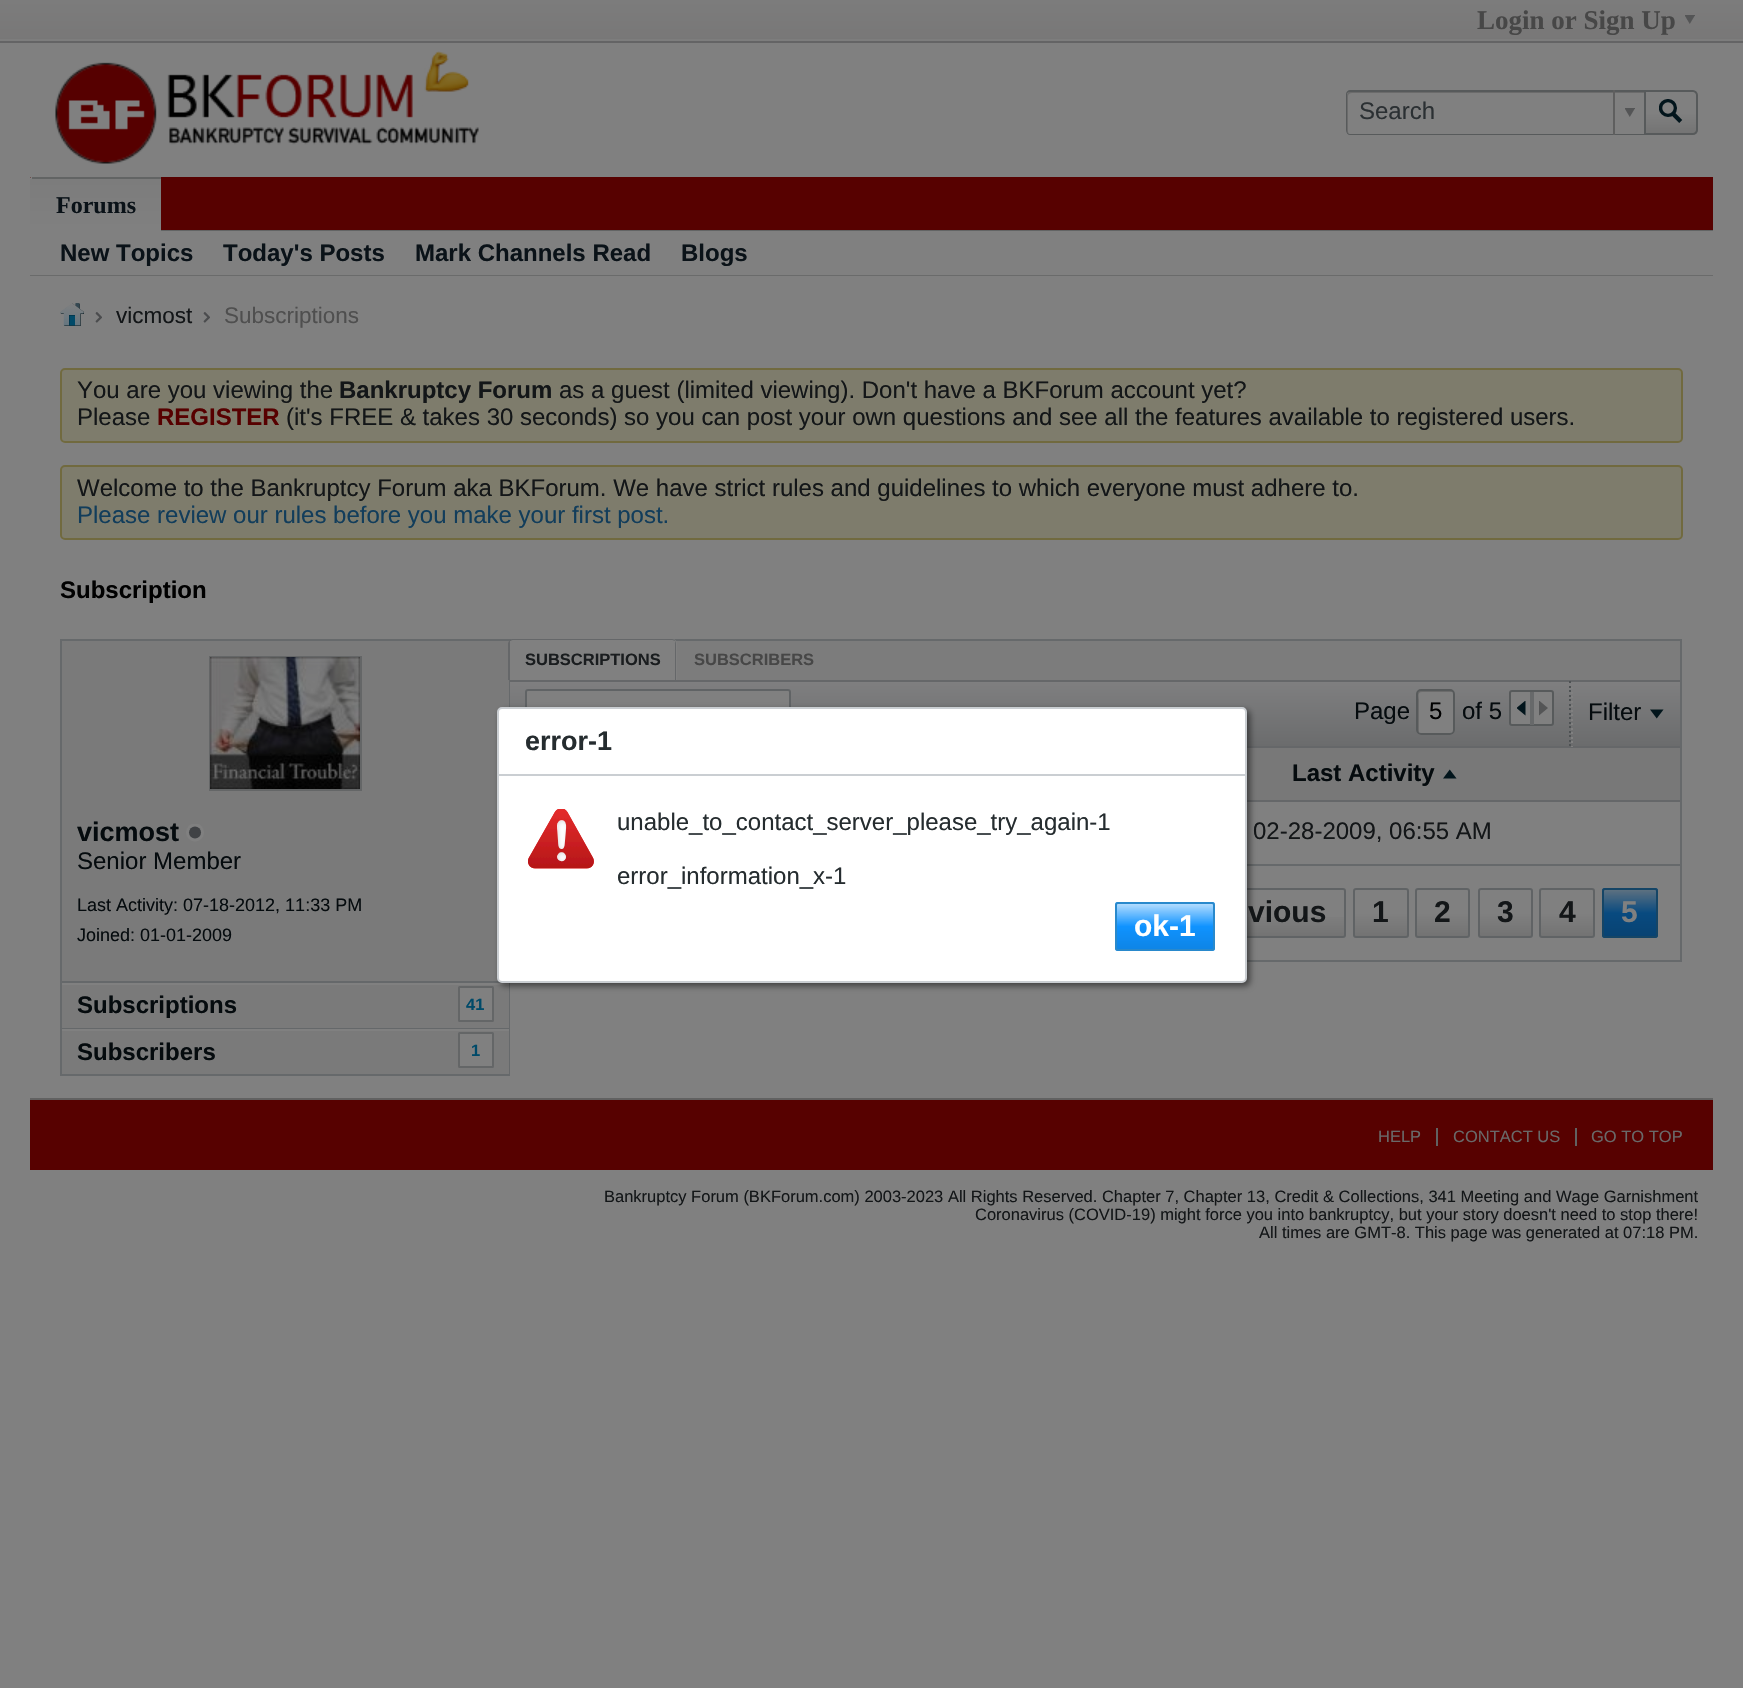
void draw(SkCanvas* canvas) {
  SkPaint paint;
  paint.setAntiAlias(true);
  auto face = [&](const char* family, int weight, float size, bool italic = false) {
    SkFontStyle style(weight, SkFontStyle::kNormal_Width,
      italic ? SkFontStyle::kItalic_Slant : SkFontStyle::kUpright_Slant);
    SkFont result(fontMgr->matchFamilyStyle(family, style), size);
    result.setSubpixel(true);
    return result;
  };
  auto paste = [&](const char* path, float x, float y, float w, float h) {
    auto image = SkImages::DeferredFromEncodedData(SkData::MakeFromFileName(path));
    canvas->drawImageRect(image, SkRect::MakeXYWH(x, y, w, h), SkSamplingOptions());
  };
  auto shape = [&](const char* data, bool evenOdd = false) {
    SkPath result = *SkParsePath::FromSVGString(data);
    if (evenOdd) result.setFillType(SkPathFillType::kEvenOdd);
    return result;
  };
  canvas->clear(0xff808080);
  {
    const SkColor colors[] = {0xff7c7c7c, 0xff787777};
    const float stops[] = {0, 1};
    const SkPoint ends[] = {{872, 0}, {872, 42}};
    paint.setShader(SkGradientShader::MakeLinear(ends, colors, stops, 2, SkTileMode::kClamp));
    paint.setAlpha(255);
  }
  canvas->drawRect(SkRect::MakeXYWH(0, 0, 1743, 39), paint);
  paste("img/1.png", 1685, 15, 10, 9);
  paint.setShader(nullptr);
  paint.setColor(0xff7d7d7d);
  canvas->drawRect(SkRect::MakeXYWH(0, 39, 1743, 2), paint);
  paint.setColor(0xff646465);
  canvas->drawRect(SkRect::MakeXYWH(0, 41, 1743, 2), paint);
  paste("img/2.png", 55, 51, 424, 113);
  paint.setColor(0xff6b6b6b);
  canvas->drawPath(shape("M1352 93H1644V92H1349L1347 94V132L1349 134L1348 132V96C1348 94 1350 93 1352 93Z"), paint);
  paint.setColor(0xff575a5b);
  canvas->drawPath(shape("M1350 90H1644V135H1350C1348 135 1346 133 1346 130V94C1346 92 1348 90 1350 90ZM1350 92H1644V134H1350C1348 134 1347 132 1347 130V94C1347 93 1348 92 1350 92Z", true), paint);
  paint.setColor(0xff5f5f5f);
  canvas->drawRect(SkRect::MakeXYWH(1613, 90, 2, 45), paint);
  paste("img/3.png", 1625, 108, 10, 9);
  canvas->save();
  canvas->clipPath(shape("M1644 90H1693C1696 90 1698 92 1698 95V130C1698 133 1696 135 1693 135H1644Z"), true);
  {
    const SkColor colors[] = {0xff737373, 0xff808080, 0xff808080};
    const float stops[] = {0, 0.5f, 1};
    const SkPoint ends[] = {{1671, 134}, {1671, 92}};
    paint.setShader(SkGradientShader::MakeLinear(ends, colors, stops, 3, SkTileMode::kClamp));
    paint.setAlpha(255);
  }
  canvas->drawRect(SkRect::MakeXYWH(1646, 92, 52, 42), paint);
  canvas->restore();
  paint.setStroke(true);
  paint.setStrokeWidth(2);
  paint.setShader(nullptr);
  paint.setColor(0xff575a5b);
  canvas->drawPath(shape("M1645 91H1693C1695 91 1697 93 1697 95V130C1697 132 1695 134 1693 134H1645Z"), paint);
  paste("img/4.png", 1659, 99, 24, 24);
  paint.setStroke(false);
  paint.setColor(0xff570100);
  canvas->drawRect(SkRect::MakeXYWH(30, 177, 1683, 53), paint);
  paint.setColor(0xff626464);
  canvas->drawRect(SkRect::MakeXYWH(161, 230, 1552, 1), paint);
  {
    const SkColor colors[] = {0xff7c7c7c, 0xff808080};
    const float stops[] = {0, 1};
    const SkPoint ends[] = {{95, 126}, {95, 179}};
    paint.setShader(SkGradientShader::MakeLinear(ends, colors, stops, 2, SkTileMode::kClamp));
    paint.setAlpha(255);
  }
  canvas->drawPath(shape("M31.5 177H159.5C160.5 177 161 177.5 161 178.5V179H30V178.5C30 177.5 30.5 177 31.5 177Z"), paint);
  {
    const SkColor colors[] = {0xff7c7c7c, 0xff808080};
    const float stops[] = {0, 1};
    const SkPoint ends[] = {{95, 179}, {95, 231}};
    paint.setShader(SkGradientShader::MakeLinear(ends, colors, stops, 2, SkTileMode::kClamp));
    paint.setAlpha(255);
  }
  canvas->drawRect(SkRect::MakeXYWH(30, 179, 131, 51), paint);
  paint.setShader(nullptr);
  paint.setColor(0xff626464);
  canvas->drawRect(SkRect::MakeXYWH(32, 177, 129, 2), paint);
  paint.setColor(0xff6a6b6b);
  canvas->drawRect(SkRect::MakeXYWH(30, 275, 1683, 1), paint);
  paste("img/5.png", 60, 303, 24, 23);
  paste("img/6.png", 95, 312, 7, 11);
  paste("img/6.png", 203, 312, 7, 11);
  paint.setColor(0xff7e7c6c);
  canvas->drawRoundRect(SkRect::MakeXYWH(61, 369, 1621, 73), 4, 4, paint);
  paint.setStroke(true);
  paint.setColor(0xff716a3f);
  canvas->drawRoundRect(SkRect::MakeXYWH(61, 369, 1621, 73), 4, 4, paint);
  paint.setStroke(false);
  paint.setColor(0xff7e7c6c);
  canvas->drawRoundRect(SkRect::MakeXYWH(61, 466, 1621, 73), 4, 4, paint);
  paint.setStroke(true);
  paint.setColor(0xff716a3f);
  canvas->drawRoundRect(SkRect::MakeXYWH(61, 466, 1621, 73), 4, 4, paint);
  paint.setColor(0xff66696b);
  canvas->drawRect(SkRect::MakeXYWH(61, 640, 448, 435), paint);
  paint.setStroke(false);
  paint.setColor(0xff7a7a7a);
  canvas->drawRect(SkRect::MakeXYWH(62, 641, 447, 433), paint);
  paint.setStroke(true);
  paint.setColor(0xff646667);
  canvas->drawRect(SkRect::MakeXYWH(210, 657, 151, 133), paint);
  paste("img/7.png", 210, 657, 150, 132);
  paste("img/8.png", 186, 824, 18, 18);
  paint.setStroke(false);
  {
    const struct { float x, y, w, h; SkColor color; } items[] = {
      {62, 981, 447, 2, 0xff65686a},
      {62, 983, 447, 2, 0xff808080},
      {62, 1028, 447, 1, 0xff65686a},
    };
    for (auto [x, y, w, h, color] : items) {
      paint.setColor(color);
      canvas->drawRect(SkRect::MakeXYWH(x, y, w, h), paint);
    }
  }
  paint.setColor(0xff808080);
  canvas->drawRoundRect(SkRect::MakeXYWH(459, 987, 34, 34), 0.5f, 0.5f, paint);
  paint.setStroke(true);
  paint.setColor(0xff646667);
  canvas->drawRoundRect(SkRect::MakeXYWH(459, 987, 34, 34), 0.5f, 0.5f, paint);
  paint.setStroke(false);
  paint.setColor(0xff808080);
  canvas->drawRect(SkRect::MakeXYWH(62, 1029, 447, 2), paint);
  canvas->drawRoundRect(SkRect::MakeXYWH(459, 1033, 34, 34), 0.5f, 0.5f, paint);
  paint.setStroke(true);
  paint.setColor(0xff646667);
  canvas->drawRoundRect(SkRect::MakeXYWH(459, 1033, 34, 34), 0.5f, 0.5f, paint);
  paint.setColor(0xff66696b);
  canvas->drawRect(SkRect::MakeXYWH(510, 640, 1171, 321), paint);
  paint.setStroke(false);
  paint.setColor(0xff7c7c7c);
  canvas->drawRect(SkRect::MakeXYWH(676, 641, 1004, 39), paint);
  paint.setColor(0xff808080);
  canvas->drawPath(shape("M514 639H672C675 639 677 641 677 644V680H509V644C509 641 511 639 514 639Z"), paint);
  paint.setColor(0xff656769);
  canvas->drawPath(shape("M513 639H672C674 639 676 641 676 644V680H508V644C508 641 511 639 513 639ZM513 640H672C674 640 675 642 675 644V680H510V644C510 642 511 640 513 640Z", true), paint);
  paint.setColor(0xff808080);
  canvas->drawRect(SkRect::MakeXYWH(510, 641, 165, 2), paint);
  {
    const SkColor colors[] = {0xff7f7f80, 0xff6b6c6d};
    const float stops[] = {0, 1};
    const SkPoint ends[] = {{1095, 681}, {1095, 746}};
    paint.setShader(SkGradientShader::MakeLinear(ends, colors, stops, 2, SkTileMode::kClamp));
    paint.setAlpha(255);
  }
  canvas->drawRect(SkRect::MakeXYWH(510, 682, 1170, 64), paint);
  paint.setShader(nullptr);
  paint.setColor(0xff656769);
  canvas->drawRect(SkRect::MakeXYWH(510, 680, 1170, 2), paint);
  canvas->drawRect(SkRect::MakeXYWH(1247, 746, 433, 2), paint);
  paint.setColor(0xff808080);
  canvas->drawRoundRect(SkRect::MakeXYWH(525, 689, 266, 49), 3, 3, paint);
  canvas->save();
  canvas->clipPath(shape("M528 689H788C789.5 689 791 690.5 791 692V735C791 736.5 789.5 738 788 738H528C526.5 738 525 736.5 525 735V692C525 690.5 526.5 689 528 689Z"), true);
  {
    const SkColor colors[] = {0x1a000000, 0x00000000, 0x00808080, 0xb3808080};
    const float stops[] = {0, 0.5f, 0.5f, 1};
    const SkPoint ends[] = {{658, 737}, {658, 690}};
    paint.setShader(SkGradientShader::MakeLinear(ends, colors, stops, 4, SkTileMode::kClamp));
    paint.setAlpha(255);
  }
  canvas->drawRect(SkRect::MakeXYWH(525, 690, 266, 17), paint);
  canvas->restore();
  paint.setStroke(true);
  paint.setShader(nullptr);
  paint.setColor(0xff606365);
  canvas->drawRoundRect(SkRect::MakeXYWH(526, 690, 264, 47), 2, 2, paint);
  paint.setStroke(false);
  paint.setColor(0xff808080);
  canvas->drawRoundRect(SkRect::MakeXYWH(1416, 689, 39, 46), 5, 5, paint);
  paint.setColor(0xff6b6b6b);
  canvas->drawPath(shape("M1422 692H1452H1454C1454 691 1452 690 1451 690H1421C1419 690 1418 691 1418 693V731C1418 732 1418 733 1419 733V700C1419 697 1417 692 1422 692Z"), paint);
  paint.setStroke(true);
  paint.setColor(0xff575a5b);
  canvas->drawRoundRect(SkRect::MakeXYWH(1417, 690, 37, 44), 4, 4, paint);
  paint.setStroke(false);
  paint.setColor(0xff808080);
  canvas->drawRoundRect(SkRect::MakeXYWH(1510, 691, 43, 34), 2, 2, paint);
  paint.setStroke(true);
  paint.setColor(0xff575a5b);
  canvas->drawRoundRect(SkRect::MakeXYWH(1510, 691, 43, 34), 2, 2, paint);
  paint.setStroke(false);
  paint.setColor(0xff67696a);
  canvas->drawRect(SkRect::MakeXYWH(1530, 692, 4, 33), paint);
  paste("img/9.png", 1517, 701, 9, 15);
  paste("img/10.png", 1539, 701, 9, 15);
  paste("img/11.png", 1569, 681, 2, 65);
  paste("img/12.png", 1571, 687, 2, 60);
  paste("img/13.png", 1650, 709, 14, 10);
  paint.setColor(0xff787878);
  canvas->drawRect(SkRect::MakeXYWH(1247, 748, 433, 52), paint);
  paint.setColor(0xff656769);
  canvas->drawRect(SkRect::MakeXYWH(1247, 800, 433, 2), paint);
  paste("img/14.png", 1443, 769, 14, 10);
  paint.setColor(0xff66696b);
  canvas->drawRect(SkRect::MakeXYWH(1247, 864, 433, 2), paint);
  {
    const SkColor colors[] = {0xff737373, 0xff808080, 0xff808080};
    const float stops[] = {0, 0.5f, 1};
    const SkPoint ends[] = {{1263, 936}, {1263, 890}};
    paint.setShader(SkGradientShader::MakeLinear(ends, colors, stops, 3, SkTileMode::kClamp));
    paint.setAlpha(255);
  }
  canvas->drawRect(SkRect::MakeXYWH(1247, 917, 99, 19), paint);
  paint.setStroke(true);
  paint.setShader(nullptr);
  paint.setColor(0xff606365);
  canvas->drawRoundRect(SkRect::MakeXYWH(1182, 889, 163, 48), 2, 2, paint);
  canvas->save();
  canvas->clipPath(shape("M1356 888H1406C1407.5 888 1409 889.5 1409 891V935C1409 936.5 1407.5 938 1406 938H1356C1354.5 938 1353 936.5 1353 935V891C1353 889.5 1354.5 888 1356 888Z"), true);
  paint.setStroke(false);
  {
    const SkColor colors[] = {0xff737373, 0xff808080, 0xff808080};
    const float stops[] = {0, 0.5f, 1};
    const SkPoint ends[] = {{1381, 936}, {1381, 890}};
    paint.setShader(SkGradientShader::MakeLinear(ends, colors, stops, 3, SkTileMode::kClamp));
    paint.setAlpha(255);
  }
  canvas->drawRect(SkRect::MakeXYWH(1353, 890, 56, 46), paint);
  canvas->restore();
  paint.setStroke(true);
  paint.setShader(nullptr);
  paint.setColor(0xff606365);
  canvas->drawRoundRect(SkRect::MakeXYWH(1354, 889, 54, 48), 2, 2, paint);
  canvas->save();
  canvas->clipPath(shape("M1418 888H1467C1468.5 888 1470 889.5 1470 891V935C1470 936.5 1468.5 938 1467 938H1418C1416.5 938 1415 936.5 1415 935V891C1415 889.5 1416.5 888 1418 888Z"), true);
  paint.setStroke(false);
  {
    const SkColor colors[] = {0xff737373, 0xff808080, 0xff808080};
    const float stops[] = {0, 0.5f, 1};
    const SkPoint ends[] = {{1442, 936}, {1442, 890}};
    paint.setShader(SkGradientShader::MakeLinear(ends, colors, stops, 3, SkTileMode::kClamp));
    paint.setAlpha(255);
  }
  canvas->drawRect(SkRect::MakeXYWH(1415, 890, 55, 46), paint);
  canvas->restore();
  paint.setStroke(true);
  paint.setShader(nullptr);
  paint.setColor(0xff606365);
  canvas->drawRoundRect(SkRect::MakeXYWH(1416, 889, 53, 48), 2, 2, paint);
  canvas->save();
  canvas->clipPath(shape("M1481 888H1530C1531.5 888 1533 889.5 1533 891V935C1533 936.5 1531.5 938 1530 938H1481C1479.5 938 1478 936.5 1478 935V891C1478 889.5 1479.5 888 1481 888Z"), true);
  paint.setStroke(false);
  {
    const SkColor colors[] = {0xff737373, 0xff808080, 0xff808080};
    const float stops[] = {0, 0.5f, 1};
    const SkPoint ends[] = {{1505, 936}, {1505, 890}};
    paint.setShader(SkGradientShader::MakeLinear(ends, colors, stops, 3, SkTileMode::kClamp));
    paint.setAlpha(255);
  }
  canvas->drawRect(SkRect::MakeXYWH(1478, 890, 55, 46), paint);
  canvas->restore();
  paint.setStroke(true);
  paint.setShader(nullptr);
  paint.setColor(0xff606365);
  canvas->drawRoundRect(SkRect::MakeXYWH(1479, 889, 53, 48), 2, 2, paint);
  canvas->save();
  canvas->clipPath(shape("M1542 888H1592C1593.5 888 1595 889.5 1595 891V935C1595 936.5 1593.5 938 1592 938H1542C1540.5 938 1539 936.5 1539 935V891C1539 889.5 1540.5 888 1542 888Z"), true);
  paint.setStroke(false);
  {
    const SkColor colors[] = {0xff737373, 0xff808080, 0xff808080};
    const float stops[] = {0, 0.5f, 1};
    const SkPoint ends[] = {{1567, 936}, {1567, 890}};
    paint.setShader(SkGradientShader::MakeLinear(ends, colors, stops, 3, SkTileMode::kClamp));
    paint.setAlpha(255);
  }
  canvas->drawRect(SkRect::MakeXYWH(1539, 890, 56, 46), paint);
  canvas->restore();
  paint.setStroke(true);
  paint.setShader(nullptr);
  paint.setColor(0xff606365);
  canvas->drawRoundRect(SkRect::MakeXYWH(1540, 889, 54, 48), 2, 2, paint);
  paint.setStroke(false);
  paint.setColor(0xff084a80);
  canvas->drawRoundRect(SkRect::MakeXYWH(1602, 888, 56, 50), 3, 3, paint);
  {
    const SkColor colors[] = {0x1a000000, 0x00000000, 0x00808080, 0xb3808080};
    const float stops[] = {0, 0.5f, 0.5f, 1};
    const SkPoint ends[] = {{1630, 936}, {1630, 890}};
    paint.setShader(SkGradientShader::MakeLinear(ends, colors, stops, 4, SkTileMode::kClamp));
    paint.setAlpha(255);
  }
  canvas->drawRect(SkRect::MakeXYWH(1602, 890, 56, 46), paint);
  paint.setStroke(true);
  paint.setShader(nullptr);
  paint.setColor(0xff154566);
  canvas->drawRoundRect(SkRect::MakeXYWH(1603, 889, 54, 48), 2, 2, paint);
  paint.setStroke(false);
  {
    const struct { float x, y, w, h; SkColor color; } items[] = {
      {30, 1100, 1683, 70, 0xff570100},
      {30, 1098, 1683, 2, 0xff616161},
      {1436, 1128, 2, 18, 0xff616161},
      {1575, 1128, 2, 18, 0xff616161},
    };
    for (auto [x, y, w, h, color] : items) {
      paint.setColor(color);
      canvas->drawRect(SkRect::MakeXYWH(x, y, w, h), paint);
    }
  }
  paint.setColor(0x80000000);
  paint.setMaskFilter(SkMaskFilter::MakeBlur(kNormal_SkBlurStyle, 3));
  canvas->drawRoundRect(SkRect::MakeXYWH(500, 710, 750, 276), 5, 5, paint);
  paint.setMaskFilter(nullptr);
  paint.setColor(0xffffffff);
  canvas->drawRoundRect(SkRect::MakeXYWH(498, 708, 748, 274), 4, 4, paint);
  paint.setStroke(true);
  paint.setColor(0xffcaced2);
  canvas->drawRoundRect(SkRect::MakeXYWH(498, 708, 748, 274), 4, 4, paint);
  paint.setStroke(false);
  canvas->drawRect(SkRect::MakeXYWH(498, 774, 747, 2), paint);
  paste("img/15.png", 528, 809, 66, 60);
  paint.setColor(0xff0f93ff);
  canvas->drawRoundRect(SkRect::MakeXYWH(1115, 902, 100, 49), 3, 3, paint);
  canvas->save();
  canvas->clipPath(shape("M1118 902H1212C1213.5 902 1215 903.5 1215 905V948C1215 949.5 1213.5 951 1212 951H1118C1116.5 951 1115 949.5 1115 948V905C1115 903.5 1116.5 902 1118 902Z"), true);
  {
    const SkColor colors[] = {0x1a000000, 0x00000000, 0x00ffffff, 0xb3ffffff};
    const float stops[] = {0, 0.5f, 0.5f, 1};
    const SkPoint ends[] = {{1165, 950}, {1165, 903}};
    paint.setShader(SkGradientShader::MakeLinear(ends, colors, stops, 4, SkTileMode::kClamp));
    paint.setAlpha(255);
  }
  canvas->drawRect(SkRect::MakeXYWH(1115, 903, 100, 47), paint);
  canvas->restore();
  paint.setStroke(true);
  paint.setShader(nullptr);
  paint.setColor(0xff2989cc);
  canvas->drawRoundRect(SkRect::MakeXYWH(1116, 903, 98, 47), 2, 2, paint);
  auto f0 = face("Liberation Serif", 700, 27);
  paint.setStroke(false);
  paint.setColor(0xff474747);
  canvas->drawString("Login or Sign Up", 1477, 29, f0, paint);
  auto f1 = face("Liberation Sans", 400, 24);
  paint.setColor(0xff2b3033);
  canvas->drawString("Search", 1359, 119, f1, paint);
  auto f2 = face("Liberation Serif", 700, 24);
  paint.setColor(0xff0a1218);
  canvas->drawString("Forums", 56, 213, f2, paint);
  auto f3 = face("Liberation Sans", 700, 24);
  {
    const struct { const char* s; float x, y; } items[] = {
      {"New Topics", 60, 261},
      {"Today's Posts", 223, 261},
      {"Mark Channels Read", 415, 261},
      {"Blogs", 681, 261},
    };
    for (auto [s, x, y] : items) {
      canvas->drawString(s, x, y, f3, paint);
    }
  }
  auto f4 = face("Liberation Sans", 400, 22.5f);
  paint.setColor(0xff131618);
  canvas->drawString("vicmost", 116, 323, f4, paint);
  paint.setColor(0xff4f4f4f);
  canvas->drawString("Subscriptions", 224, 323, f4, paint);
  paint.setColor(0xff131618);
  canvas->drawString("You are you viewing the", 77, 398, f1, paint);
  canvas->drawString("Bankruptcy Forum", 339, 398, f3, paint);
  canvas->drawString("as a guest (limited viewing). Don't have a BKForum account yet?", 559, 398, f1, paint);
  canvas->drawString("Please", 77, 425, f1, paint);
  paint.setColor(0xff570000);
  canvas->drawString("REGISTER", 157, 425, f3, paint);
  paint.setColor(0xff131618);
  canvas->drawString("(it's FREE & takes 30 seconds) so you can post your own questions and see all the features available to registered users.", 286, 425, f1, paint);
  canvas->drawString("Welcome to the Bankruptcy Forum aka BKForum. We have strict rules and guidelines to which everyone must adhere to.", 77, 496, f1, paint);
  paint.setColor(0xff123d5b);
  canvas->drawString("Please review our rules before you make your first post.", 77, 523, f1, paint);
  paint.setColor(0xff000000);
  canvas->drawString("Subscription", 60, 598, f3, paint);
  auto f5 = face("Liberation Sans", 700, 27);
  paint.setColor(0xff050b0e);
  canvas->drawString("vicmost", 77, 841, f5, paint);
  canvas->drawString("Senior Member", 77, 869, f1, paint);
  auto f6 = face("Liberation Sans", 400, 18);
  canvas->drawString("Last Activity: 07-18-2012, 11:33 PM", 77, 911, f6, paint);
  canvas->drawString("Joined: 01-01-2009", 77, 941, f6, paint);
  canvas->drawString("Subscriptions", 77, 1013, f3, paint);
  auto f7 = face("Liberation Sans", 700, 16.5f);
  paint.setColor(0xff004a69);
  canvas->drawString("41", 466, 1010, f7, paint);
  paint.setColor(0xff050b0e);
  canvas->drawString("Subscribers", 77, 1060, f3, paint);
  paint.setColor(0xff004a69);
  canvas->drawString("1", 471, 1056, f7, paint);
  paint.setColor(0xff1a1d1f);
  canvas->drawString("SUBSCRIPTIONS", 525, 665, f7, paint);
  paint.setColor(0xff474747);
  canvas->drawString("SUBSCRIBERS", 694, 665, f7, paint);
  paint.setColor(0xff050b0e);
  canvas->drawString("Page", 1354, 719, f1, paint);
  paint.setColor(0xff000000);
  canvas->drawString("5", 1429, 719, f1, paint);
  paint.setColor(0xff050b0e);
  canvas->drawString("of 5", 1462, 719, f1, paint);
  canvas->drawString("Filter", 1588, 720, f1, paint);
  canvas->drawString("Last Activity", 1292, 781, f3, paint);
  paint.setColor(0xff131618);
  canvas->drawString("02-28-2009, 06:55 AM", 1253, 839, f1, paint);
  auto f8 = face("Liberation Sans", 700, 30);
  {
    const struct { const char* s; float x, y; } items[] = {
      {"vious", 1248, 922},
      {"1", 1372, 922},
      {"2", 1434, 922},
      {"3", 1497, 922},
      {"4", 1559, 922},
    };
    for (auto [s, x, y] : items) {
      canvas->drawString(s, x, y, f8, paint);
    }
  }
  paint.setColor(0xff808080);
  canvas->drawString("5", 1621, 922, f8, paint);
  auto f9 = face("Liberation Sans", 400, 16.5f);
  paint.setColor(0xff696969);
  {
    const struct { const char* s; float x, y; } items[] = {
      {"HELP", 1378, 1142},
      {"CONTACT US", 1453, 1142},
      {"GO TO TOP", 1591, 1142},
    };
    for (auto [s, x, y] : items) {
      canvas->drawString(s, x, y, f9, paint);
    }
  }
  paint.setColor(0xff131618);
  {
    const struct { const char* s; float x, y; } items[] = {
      {"Bankruptcy Forum (BKForum.com) 2003-2023 All Rights Reserved. Chapter 7, Chapter 13, Credit & Collections, 341 Meeting and Wage Garnishment", 604, 1202},
      {"Coronavirus (COVID-19) might force you into bankruptcy, but your story doesn't need to stop there!", 975, 1220},
      {"All times are GMT-8. This page was generated at 07:18 PM.", 1259, 1238},
    };
    for (auto [s, x, y] : items) {
      canvas->drawString(s, x, y, f9, paint);
    }
  }
  paint.setColor(0xff252c2f);
  canvas->drawString("error-1", 525, 750, f5, paint);
  canvas->drawString("unable_to_contact_server_please_try_again-1", 617, 830, f1, paint);
  canvas->drawString("error_information_x-1", 617, 884, f1, paint);
  paint.setColor(0xffffffff);
  canvas->drawString("ok-1", 1134, 936, f8, paint);
}
